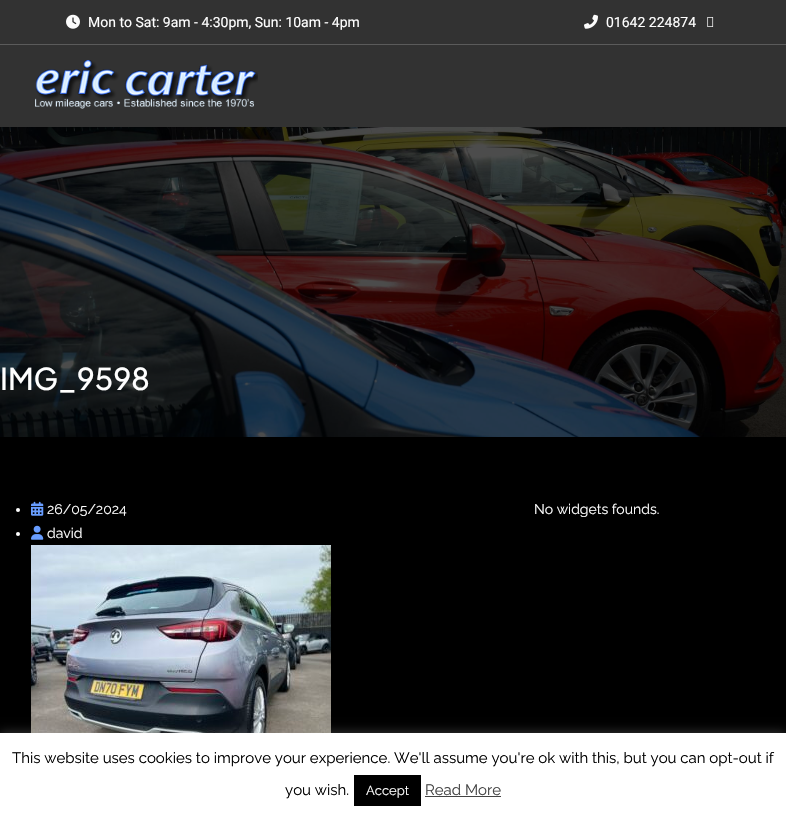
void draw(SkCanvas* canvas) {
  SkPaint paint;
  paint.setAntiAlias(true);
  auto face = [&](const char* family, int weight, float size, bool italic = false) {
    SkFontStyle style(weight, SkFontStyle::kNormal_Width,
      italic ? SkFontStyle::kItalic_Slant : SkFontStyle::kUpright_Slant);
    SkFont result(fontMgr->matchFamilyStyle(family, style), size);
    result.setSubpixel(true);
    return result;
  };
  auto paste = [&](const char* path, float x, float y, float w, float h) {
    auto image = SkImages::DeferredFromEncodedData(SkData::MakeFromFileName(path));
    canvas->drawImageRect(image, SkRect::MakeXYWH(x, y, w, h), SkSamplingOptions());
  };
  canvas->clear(0xff000000);
  paint.setColor(0xff323232);
  canvas->drawRect(SkRect::MakeXYWH(0, 0, 786, 127), paint);
  paint.setColor(0xff5b5b5b);
  canvas->drawRect(SkRect::MakeXYWH(0, 44, 786, 1), paint);
  paste("img/1.png", 66, 14, 14, 15);
  paste("img/2.png", 584, 14, 14, 15);
  paste("img/3.png", 707, 17, 7, 10);
  paste("img/4.png", 35, 60, 223, 49);
  paste("img/5.png", 0, 127, 786, 310);
  paint.setColor(0xffffffff);
  canvas->drawCircle(18, 510, 2, paint);
  paste("img/6.png", 31, 501, 13, 15);
  canvas->drawCircle(18, 534, 2, paint);
  paste("img/7.png", 31, 525, 13, 15);
  paste("img/8.png", 31, 545, 300, 188);
  paint.setColor(0x4dacabab);
  paint.setMaskFilter(SkMaskFilter::MakeBlur(kNormal_SkBlurStyle, 5));
  canvas->drawRect(SkRect::MakeXYWH(0, 732, 786, 85), paint);
  paint.setMaskFilter(nullptr);
  {
    const struct { float x, y, w, h; SkColor color; } items[] = {
      {0, 733, 786, 85, 0xffffffff},
      {354, 775, 67, 31, 0xff000000},
      {425, 796, 76, 1, 0xff444444},
    };
    for (auto [x, y, w, h, color] : items) {
      paint.setColor(color);
      canvas->drawRect(SkRect::MakeXYWH(x, y, w, h), paint);
    }
  }
  auto f0 = face("Roboto", 400, 14);
  paint.setColor(0xffffffff);
  canvas->drawString("Mon to Sat: 9am - 4:30pm, Sun: 10am - 4pm", 88, 27, f0, paint);
  canvas->drawString("01642 224874", 606, 27, f0, paint);
  auto f1 = face("Plus Jakarta Sans", 500, 30);
  canvas->drawString("IMG_9598", 0, 390, f1, paint);
  auto f2 = face("Raleway", 100, 14);
  {
    const struct { const char* s; float x, y; } items[] = {
      {"26/05/2024", 47, 514},
      {"david", 47, 538},
      {"No widgets founds.", 534, 514},
    };
    for (auto [s, x, y] : items) {
      canvas->drawString(s, x, y, f2, paint);
    }
  }
  auto f3 = face("Raleway", 100, 15);
  paint.setColor(0xff000000);
  canvas->drawString("This website uses cookies to improve your experience. We'll assume you're ok with this, but you can opt-out if", 12, 763, f3, paint);
  canvas->drawString("you wish.", 285, 795, f3, paint);
  auto f4 = face("Raleway", 100, 13);
  paint.setColor(0xffffffff);
  canvas->drawString("Accept", 366, 795, f4, paint);
  paint.setColor(0xff444444);
  canvas->drawString("Read More", 425, 795, f3, paint);
}
